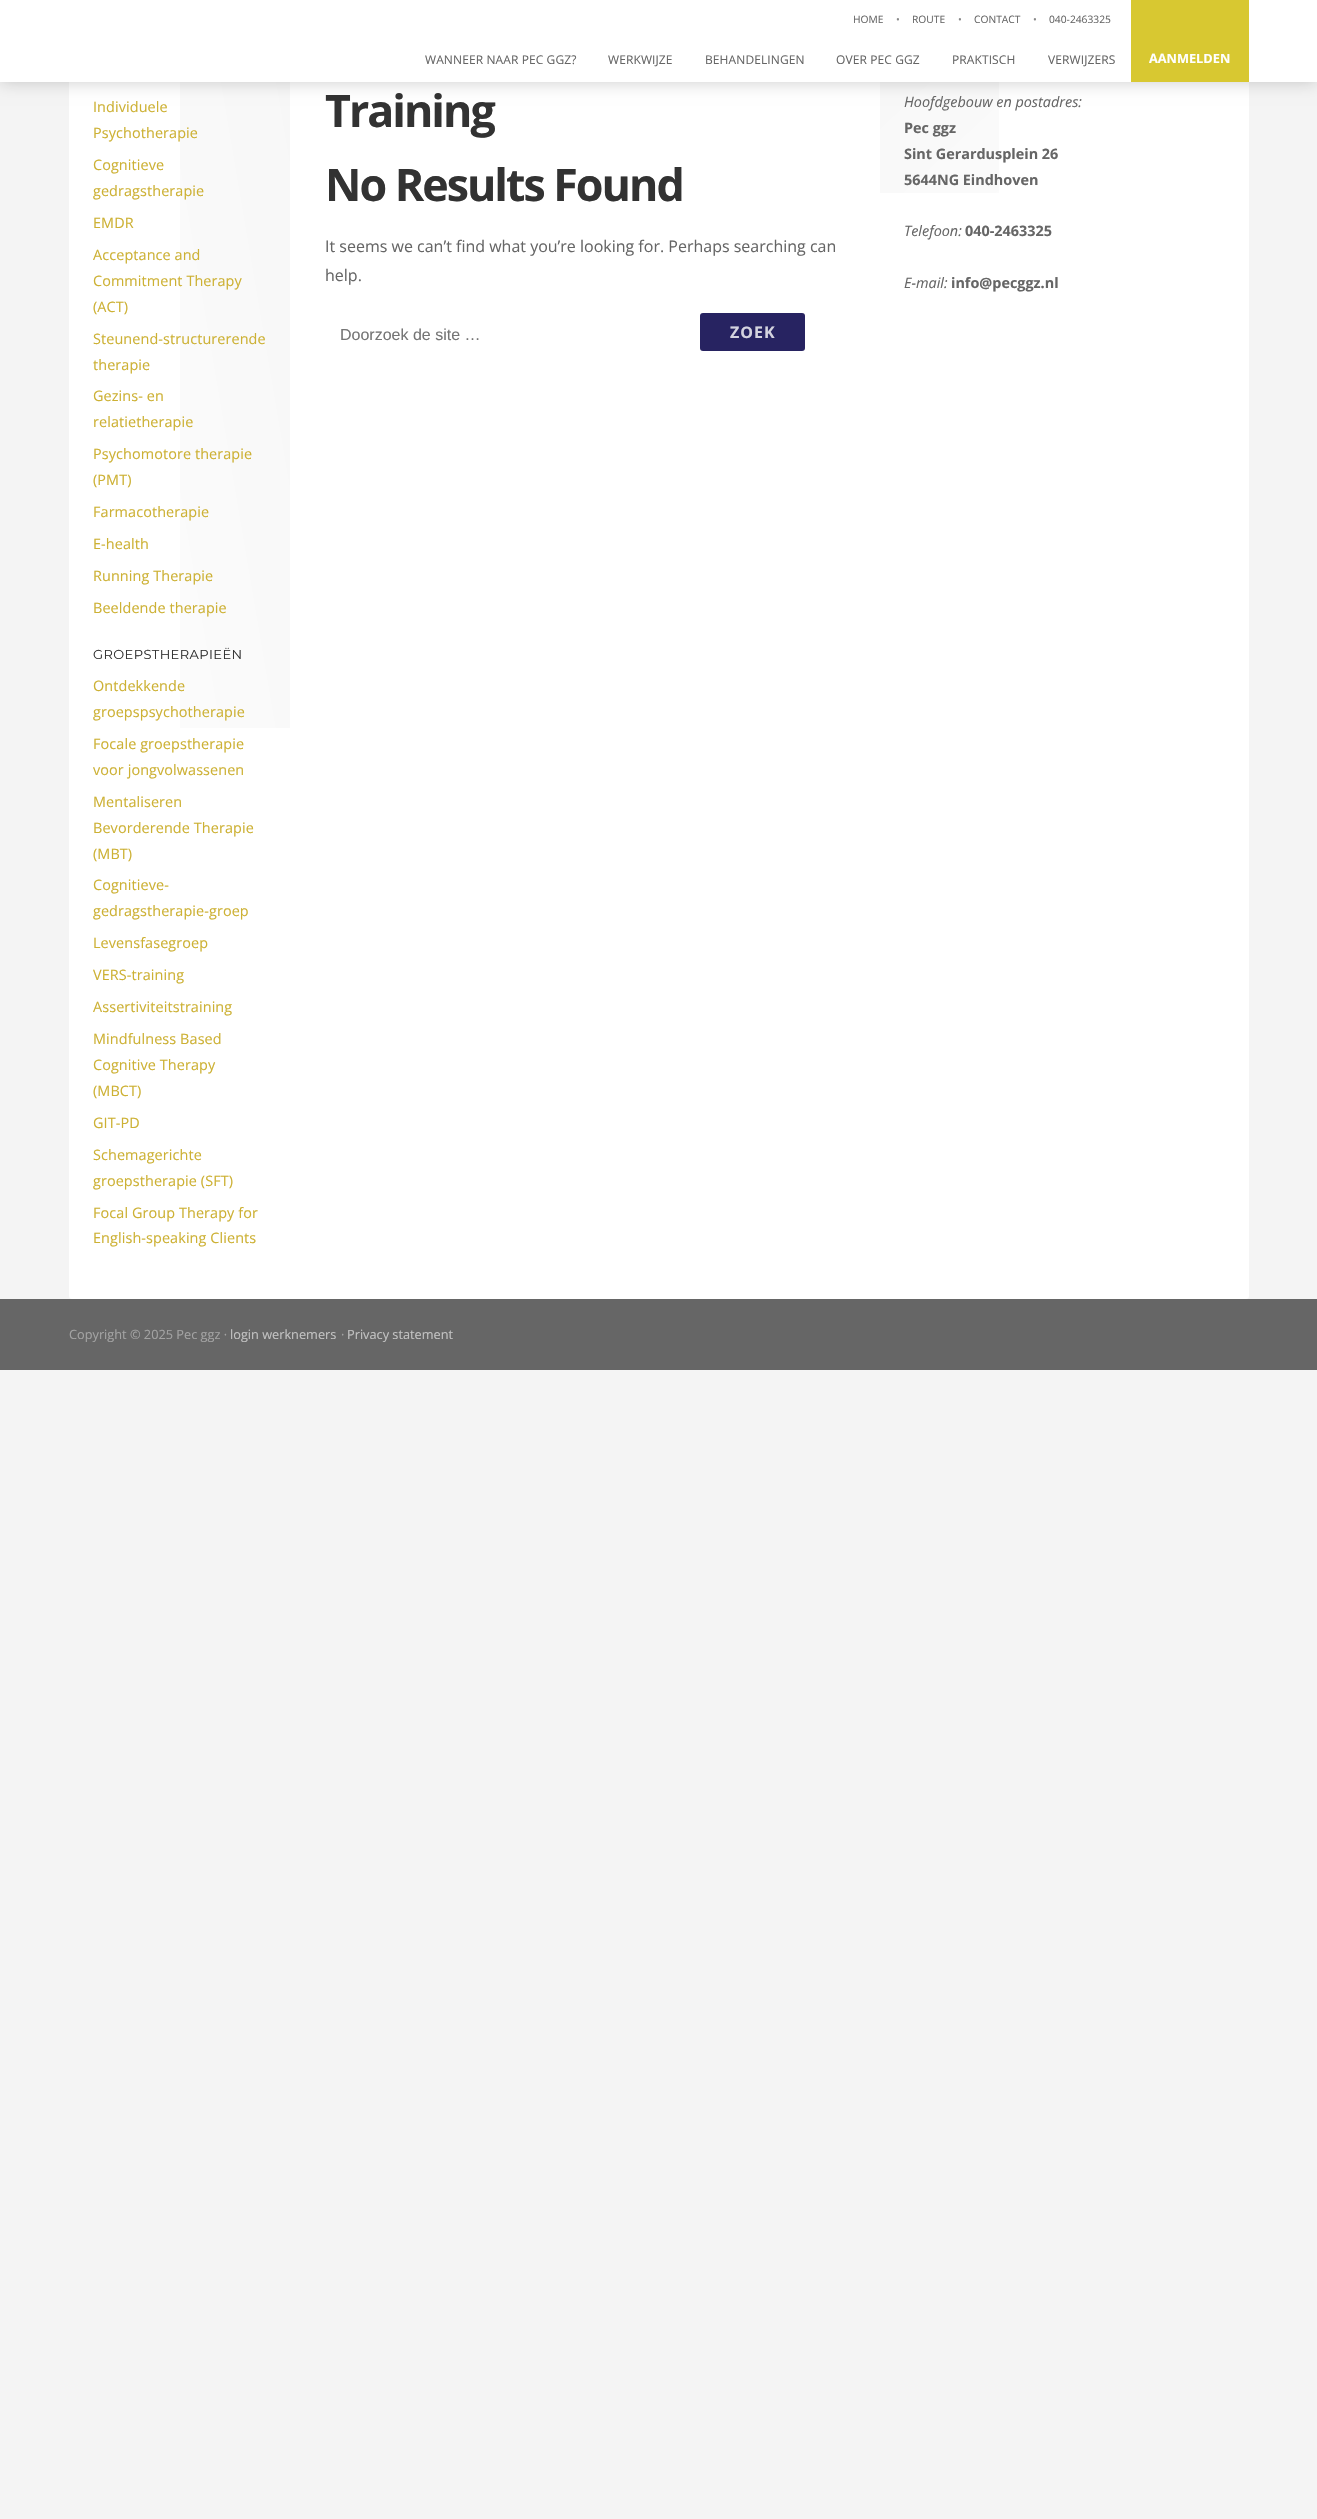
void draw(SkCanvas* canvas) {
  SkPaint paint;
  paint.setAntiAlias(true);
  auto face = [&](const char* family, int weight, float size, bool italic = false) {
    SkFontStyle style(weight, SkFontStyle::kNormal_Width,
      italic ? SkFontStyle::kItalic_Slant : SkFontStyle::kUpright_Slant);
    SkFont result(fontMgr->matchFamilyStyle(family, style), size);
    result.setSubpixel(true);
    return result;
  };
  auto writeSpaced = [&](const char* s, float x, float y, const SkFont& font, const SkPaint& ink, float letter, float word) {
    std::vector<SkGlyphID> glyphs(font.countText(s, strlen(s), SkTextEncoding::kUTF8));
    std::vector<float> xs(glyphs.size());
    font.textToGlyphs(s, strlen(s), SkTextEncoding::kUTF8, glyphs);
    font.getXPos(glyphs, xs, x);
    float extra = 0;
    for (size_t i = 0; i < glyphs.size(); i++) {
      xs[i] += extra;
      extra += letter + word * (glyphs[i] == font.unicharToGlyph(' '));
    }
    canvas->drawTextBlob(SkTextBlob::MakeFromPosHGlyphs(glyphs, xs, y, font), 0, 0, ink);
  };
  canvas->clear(0xfff4f4f4);
  paint.setColor(0xffffffff);
  canvas->drawRoundRect(SkRect::MakeXYWH(69, 0, 1180, 1299), 3, 3, paint);
  {
    const SkColor colors[] = {0x08000000, 0x00000000};
    const float stops[] = {0, 1};
    const SkPoint ends[] = {{394, 613}, {-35, 686}};
    paint.setShader(SkGradientShader::MakeLinear(ends, colors, stops, 2, SkTileMode::kClamp));
    paint.setAlpha(255);
  }
  canvas->drawRect(SkRect::MakeXYWH(180, 82, 110, 646), paint);
  {
    const SkColor colors[] = {0x08000000, 0x00000000};
    const float stops[] = {0, 1};
    const SkPoint ends[] = {{893, -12}, {1236, 356}};
    paint.setShader(SkGradientShader::MakeLinear(ends, colors, stops, 2, SkTileMode::kClamp));
    paint.setAlpha(255);
  }
  canvas->drawRect(SkRect::MakeXYWH(880, 82, 119, 111), paint);
  paint.setShader(nullptr);
  paint.setColor(0x33000000);
  paint.setMaskFilter(SkMaskFilter::MakeBlur(kNormal_SkBlurStyle, 8));
  canvas->drawRect(SkRect::MakeXYWH(0, 0, 1317, 82), paint);
  paint.setMaskFilter(nullptr);
  paint.setColor(0xffffffff);
  canvas->drawRect(SkRect::MakeXYWH(0, 0, 1317, 82), paint);
  paint.setColor(0xffd8c831);
  canvas->drawRect(SkRect::MakeXYWH(1131, 0, 118, 82), paint);
  paint.setColor(0xff272361);
  canvas->drawRoundRect(SkRect::MakeXYWH(700, 313, 105, 38), 3, 3, paint);
  paint.setColor(0xff666666);
  canvas->drawRect(SkRect::MakeXYWH(0, 1299, 1317, 71), paint);
  auto f0 = face("Open Sans", 400, 10.25f);
  canvas->drawString("HOME", 853, 23, f0, paint);
  paint.setColor(0xff888888);
  canvas->drawString("•", 896, 23, f0, paint);
  paint.setColor(0xff666666);
  canvas->drawString("ROUTE", 912, 23, f0, paint);
  paint.setColor(0xff888888);
  canvas->drawString("•", 958, 23, f0, paint);
  paint.setColor(0xff666666);
  canvas->drawString("CONTACT", 974, 23, f0, paint);
  paint.setColor(0xff888888);
  canvas->drawString("•", 1033, 23, f0, paint);
  paint.setColor(0xff666666);
  canvas->drawString("040-2463325", 1049, 23, f0, paint);
  auto f1 = face("Open Sans", 400, 12);
  {
    const struct { const char* s; float x, y; } items[] = {
      {"WANNEER NAAR PEC GGZ?", 425, 64},
      {"WERKWIJZE", 608, 64},
      {"BEHANDELINGEN", 705, 64},
      {"OVER PEC GGZ", 836, 64},
      {"PRAKTISCH", 952, 64},
      {"VERWIJZERS", 1048, 64},
    };
    for (auto [s, x, y] : items) {
      writeSpaced(s, x, y, f1, paint, 0.1f, 0);
    }
  }
  auto f2 = face("Open Sans", 700, 12.75f);
  paint.setColor(0xffffffff);
  canvas->drawString("AANMELDEN", 1149, 63, f2, paint);
  auto f3 = face("Open Sans", 400, 14.4f);
  paint.setColor(0xffcdb134);
  {
    const struct { const char* s; float x, y; } items[] = {
      {"Individuele", 93, 112},
      {"Psychotherapie", 93, 138},
      {"Cognitieve", 93, 170},
      {"gedragstherapie", 93, 196},
      {"EMDR", 93, 228},
      {"Acceptance and", 93, 260},
      {"Commitment Therapy", 93, 286},
      {"(ACT)", 93, 312},
      {"Steunend-structurerende", 93, 344},
      {"therapie", 93, 370},
      {"Gezins- en", 93, 401},
      {"relatietherapie", 93, 427},
      {"Psychomotore therapie", 93, 459},
      {"(PMT)", 93, 485},
      {"Farmacotherapie", 93, 517},
      {"E-health", 93, 549},
      {"Running Therapie", 93, 581},
      {"Beeldende therapie", 93, 613},
    };
    for (auto [s, x, y] : items) {
      writeSpaced(s, x, y, f3, paint, 0.1f, 0);
    }
  }
  auto f4 = face("Montserrat", 400, 13);
  paint.setColor(0xff323232);
  writeSpaced("GROEPSTHERAPIEËN", 93, 659, f4, paint, 0.4f, 0);
  paint.setColor(0xffcdb134);
  {
    const struct { const char* s; float x, y; } items[] = {
      {"Ontdekkende", 93, 691},
      {"groepspsychotherapie", 93, 717},
      {"Focale groepstherapie", 93, 749},
      {"voor jongvolwassenen", 93, 775},
      {"Mentaliseren", 93, 807},
      {"Bevorderende Therapie", 93, 833},
      {"(MBT)", 93, 859},
      {"Cognitieve-", 93, 890},
      {"gedragstherapie-groep", 93, 916},
      {"Levensfasegroep", 93, 948},
      {"VERS-training", 93, 980},
      {"Assertiviteitstraining", 93, 1012},
      {"Mindfulness Based", 93, 1044},
      {"Cognitive Therapy", 93, 1070},
      {"(MBCT)", 93, 1096},
      {"GIT-PD", 93, 1128},
      {"Schemagerichte", 93, 1160},
      {"groepstherapie (SFT)", 93, 1186},
      {"Focal Group Therapy for", 93, 1218},
      {"English-speaking Clients", 93, 1243},
    };
    for (auto [s, x, y] : items) {
      writeSpaced(s, x, y, f3, paint, 0.1f, 0);
    }
  }
  auto f5 = face("Open Sans", 700, 44.75f);
  paint.setColor(0xff323232);
  writeSpaced("Training", 325, 127, f5, paint, -2, 0);
  writeSpaced("No Results Found", 325, 201, f5, paint, -2, 0);
  auto f6 = face("Open Sans", 400, 16);
  paint.setColor(0xff666666);
  canvas->drawString("It seems we can’t find what you’re looking for. Perhaps searching can", 325, 252, f6, paint);
  canvas->drawString("help.", 325, 281, f6, paint);
  auto f7 = face("Liberation Sans", 400, 16);
  paint.setColor(0xff757575);
  canvas->drawString("Doorzoek de site …", 340, 340, f7, paint);
  auto f8 = face("Open Sans", 700, 16);
  paint.setColor(0xffd4d3df);
  writeSpaced("ZOEK", 730, 338, f8, paint, 1, 0);
  auto f9 = face("Open Sans", 400, 14.4f, true);
  paint.setColor(0xff666666);
  canvas->drawString("Hoofdgebouw en postadres:", 904, 107, f9, paint);
  auto f10 = face("Open Sans", 700, 14.4f);
  {
    const struct { const char* s; float x, y; } items[] = {
      {"Pec ggz", 904, 133},
      {"Sint Gerardusplein 26", 904, 159},
      {"5644NG Eindhoven", 904, 185},
    };
    for (auto [s, x, y] : items) {
      canvas->drawString(s, x, y, f10, paint);
    }
  }
  canvas->drawString("Telefoon:", 904, 236, f9, paint);
  canvas->drawString("040-2463325", 965, 236, f10, paint);
  canvas->drawString("E-mail:", 904, 288, f9, paint);
  canvas->drawString("info@pecggz.nl", 951, 288, f10, paint);
  auto f11 = face("Open Sans", 400, 12.75f);
  paint.setColor(0xffa3a3a3);
  canvas->drawString("Copyright © 2025 Pec ggz ·", 69, 1339, f11, paint);
  paint.setColor(0xffc2c2c2);
  canvas->drawString("login werknemers", 230, 1339, f11, paint);
  paint.setColor(0xffa3a3a3);
  canvas->drawString("·", 341, 1339, f11, paint);
  paint.setColor(0xffc2c2c2);
  canvas->drawString("Privacy statement", 347, 1339, f11, paint);
}
